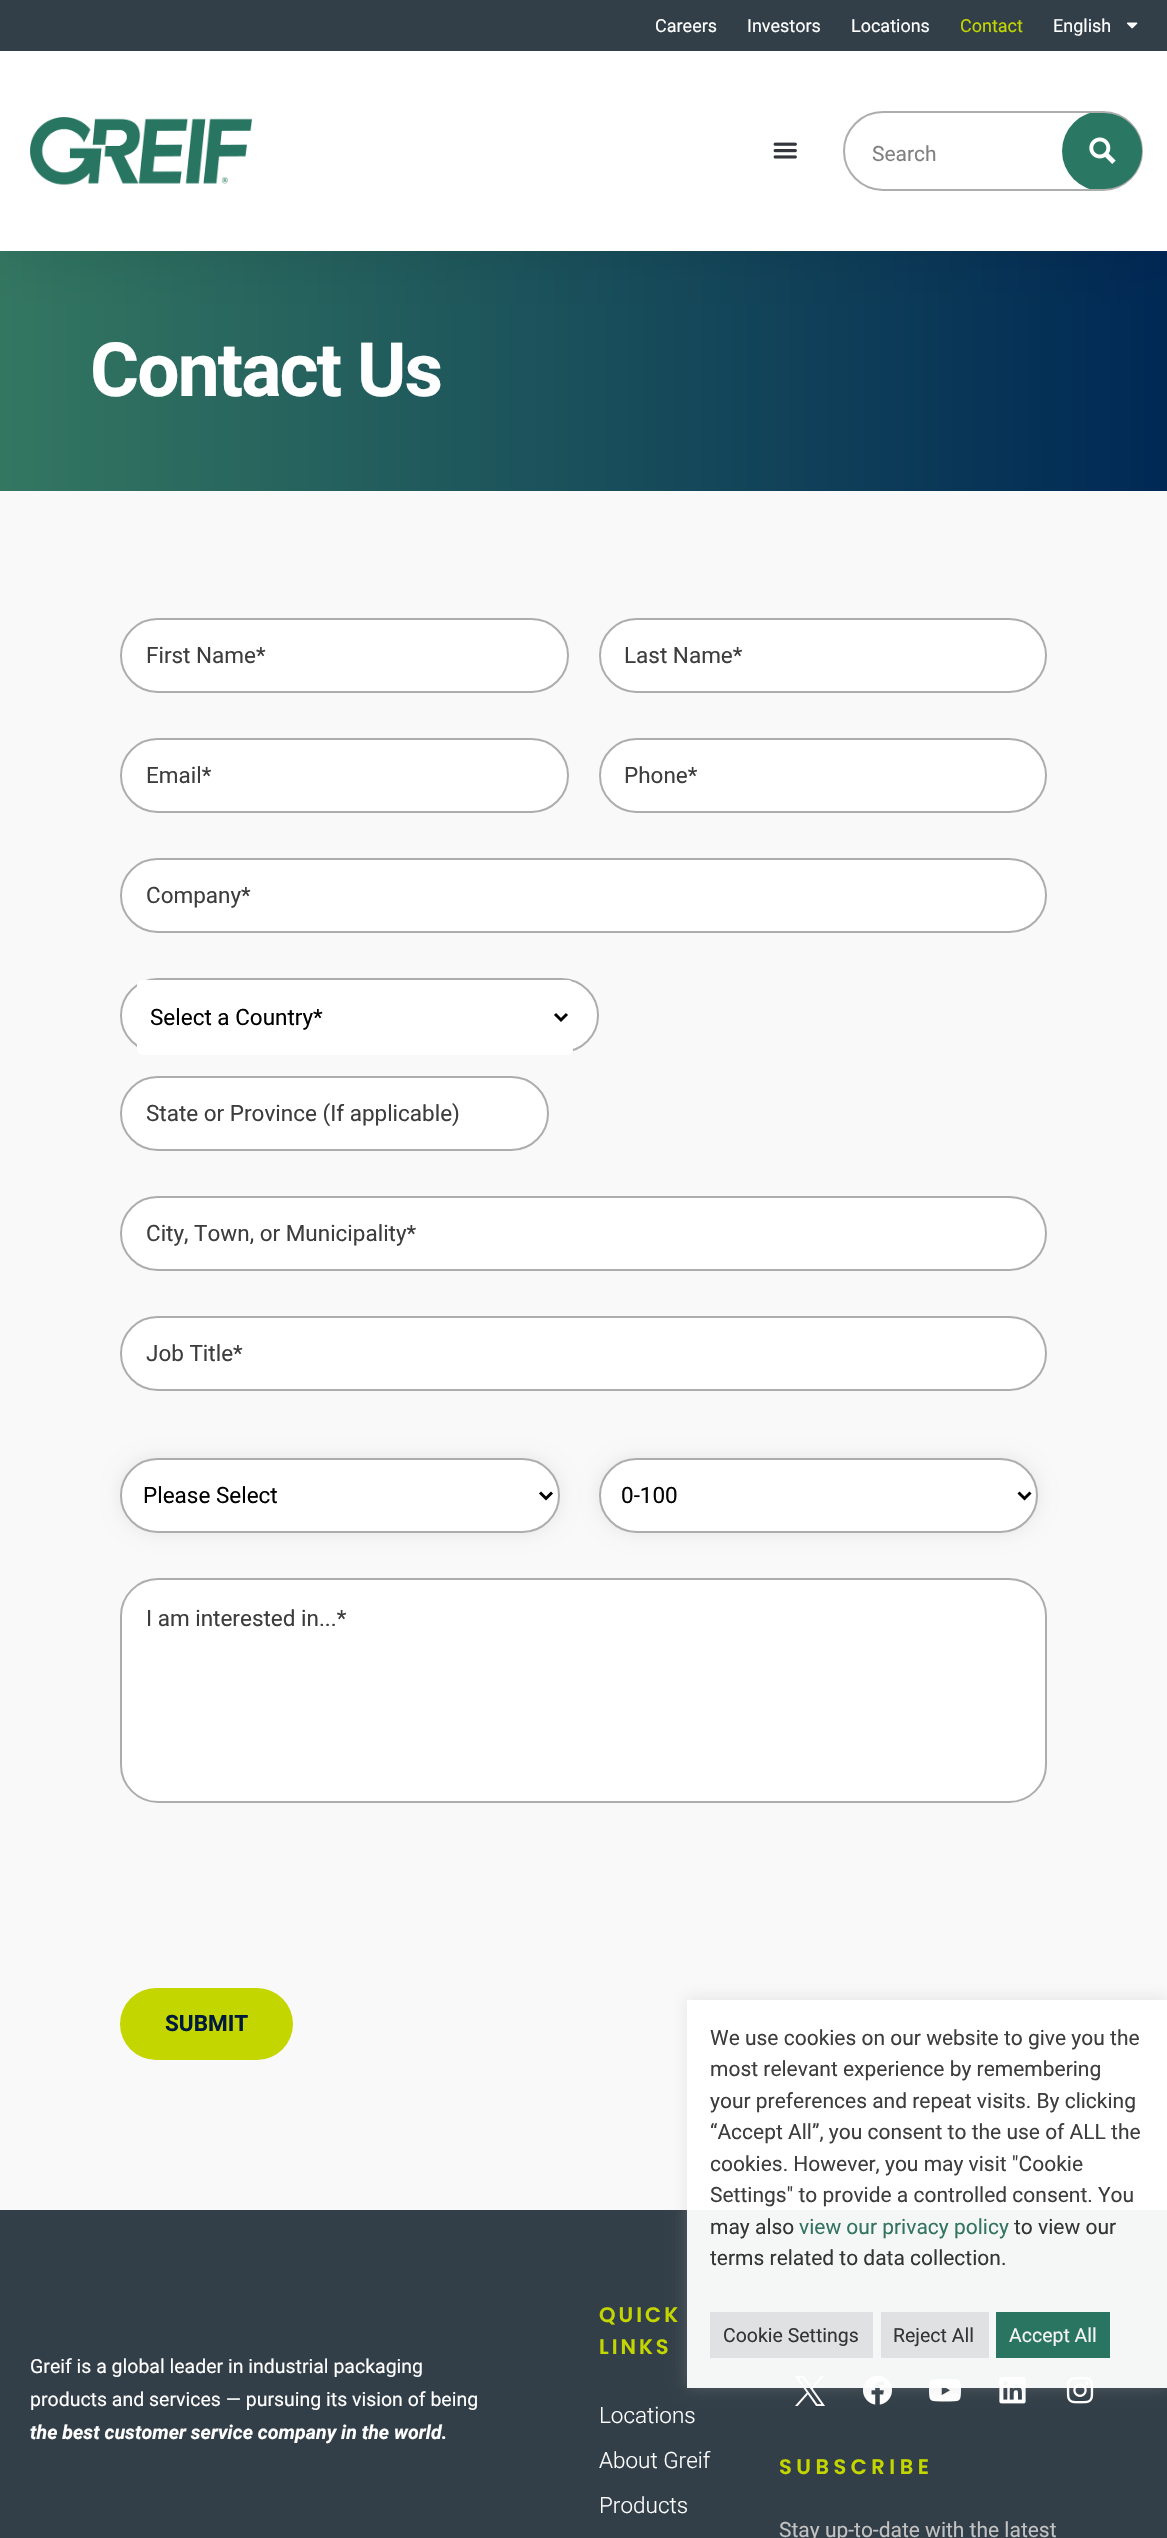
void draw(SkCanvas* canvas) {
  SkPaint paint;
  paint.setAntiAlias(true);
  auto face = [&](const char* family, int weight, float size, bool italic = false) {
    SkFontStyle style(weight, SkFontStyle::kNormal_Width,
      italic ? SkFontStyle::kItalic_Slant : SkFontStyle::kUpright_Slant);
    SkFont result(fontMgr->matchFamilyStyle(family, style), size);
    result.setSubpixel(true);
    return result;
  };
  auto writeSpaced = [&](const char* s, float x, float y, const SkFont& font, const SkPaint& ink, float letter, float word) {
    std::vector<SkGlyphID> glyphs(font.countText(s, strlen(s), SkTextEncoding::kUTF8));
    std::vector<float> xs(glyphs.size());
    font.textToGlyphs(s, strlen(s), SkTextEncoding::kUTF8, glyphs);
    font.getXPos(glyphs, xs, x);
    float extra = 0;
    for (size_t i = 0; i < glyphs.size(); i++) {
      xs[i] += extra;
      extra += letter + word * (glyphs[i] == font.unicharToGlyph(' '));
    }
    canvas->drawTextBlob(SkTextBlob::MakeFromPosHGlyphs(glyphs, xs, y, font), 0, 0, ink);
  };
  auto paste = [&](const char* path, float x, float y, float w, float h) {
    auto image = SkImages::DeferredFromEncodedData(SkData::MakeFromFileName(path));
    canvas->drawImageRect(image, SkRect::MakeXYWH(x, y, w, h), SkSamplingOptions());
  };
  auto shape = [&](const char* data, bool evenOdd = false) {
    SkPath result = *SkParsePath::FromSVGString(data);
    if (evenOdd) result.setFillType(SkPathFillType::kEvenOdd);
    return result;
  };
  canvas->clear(0xffffffff);
  {
    const SkColor colors[] = {0xff002855, 0xff337761};
    const float stops[] = {0, 1};
    const SkPoint ends[] = {{1167, 370}, {0, 371}};
    paint.setShader(SkGradientShader::MakeLinear(ends, colors, stops, 2, SkTileMode::kClamp));
    paint.setAlpha(255);
  }
  canvas->drawRect(SkRect::MakeXYWH(0, 251, 1167, 240), paint);
  paint.setShader(nullptr);
  paint.setColor(0x1a000000);
  paint.setMaskFilter(SkMaskFilter::MakeBlur(kNormal_SkBlurStyle, 28.5f));
  canvas->drawRect(SkRect::MakeXYWH(0, 51, 1167, 200), paint);
  paint.setMaskFilter(nullptr);
  paint.setColor(0xff333f48);
  canvas->drawRect(SkRect::MakeXYWH(0, 0, 1167, 51), paint);
  paste("img/1.png", 1126, 22, 12, 7);
  paint.setColor(0xffffffff);
  canvas->drawRect(SkRect::MakeXYWH(0, 51, 1167, 200), paint);
  paste("img/2.png", 30, 117, 222, 68);
  paste("img/3.png", 773, 142, 24, 17);
  paint.setStroke(true);
  paint.setStrokeWidth(2);
  paint.setColor(0xffadadad);
  canvas->drawRoundRect(SkRect::MakeXYWH(844, 112, 298, 78), 39, 39, paint);
  canvas->save();
  canvas->clipPath(shape("M883 113H1104C1125 113 1142 130 1142 151C1142 172 1125 189 1104 189H883C862 189 845 172 845 151C845 130 862 113 883 113Z"), true);
  paint.setStroke(false);
  paint.setColor(0xff2a7763);
  canvas->drawRoundRect(SkRect::MakeXYWH(1062, 111, 83, 80), 40, 40, paint);
  canvas->restore();
  paint.setColor(0xa3ffffff);
  canvas->drawPath(shape("M1082.5 116C1085 114.5 1088 113 1091 113C1088 113.5 1085.5 114.5 1082.5 116Z"), paint);
  paste("img/4.png", 1089, 137, 27, 27);
  paint.setColor(0xfff9f9f9);
  canvas->drawRect(SkRect::MakeXYWH(0, 491, 1167, 1719), paint);
  paint.setColor(0xffffffff);
  canvas->drawRoundRect(SkRect::MakeXYWH(121, 619, 447, 73), 36.5f, 36.5f, paint);
  paint.setStroke(true);
  paint.setColor(0xffadadad);
  canvas->drawRoundRect(SkRect::MakeXYWH(121, 619, 447, 73), 36.5f, 36.5f, paint);
  paint.setStroke(false);
  paint.setColor(0xffffffff);
  canvas->drawRoundRect(SkRect::MakeXYWH(600, 619, 446, 73), 36.5f, 36.5f, paint);
  paint.setStroke(true);
  paint.setColor(0xffadadad);
  canvas->drawRoundRect(SkRect::MakeXYWH(600, 619, 446, 73), 36.5f, 36.5f, paint);
  paint.setStroke(false);
  paint.setColor(0xffffffff);
  canvas->drawRoundRect(SkRect::MakeXYWH(121, 739, 447, 73), 36.5f, 36.5f, paint);
  paint.setStroke(true);
  paint.setColor(0xffadadad);
  canvas->drawRoundRect(SkRect::MakeXYWH(121, 739, 447, 73), 36.5f, 36.5f, paint);
  paint.setStroke(false);
  paint.setColor(0xffffffff);
  canvas->drawRoundRect(SkRect::MakeXYWH(600, 739, 446, 73), 36.5f, 36.5f, paint);
  paint.setStroke(true);
  paint.setColor(0xffadadad);
  canvas->drawRoundRect(SkRect::MakeXYWH(600, 739, 446, 73), 36.5f, 36.5f, paint);
  paint.setStroke(false);
  paint.setColor(0xffffffff);
  canvas->drawRoundRect(SkRect::MakeXYWH(121, 859, 925, 73), 36.5f, 36.5f, paint);
  paint.setStroke(true);
  paint.setColor(0xffadadad);
  canvas->drawRoundRect(SkRect::MakeXYWH(121, 859, 925, 73), 36.5f, 36.5f, paint);
  paint.setStroke(false);
  paint.setColor(0xffffffff);
  canvas->drawRoundRect(SkRect::MakeXYWH(121, 979, 477, 73), 36.5f, 36.5f, paint);
  paint.setStroke(true);
  paint.setColor(0xffadadad);
  canvas->drawRoundRect(SkRect::MakeXYWH(121, 979, 477, 73), 36.5f, 36.5f, paint);
  paint.setStroke(false);
  paint.setColor(0xffffffff);
  canvas->drawRoundRect(SkRect::MakeXYWH(137, 980, 436, 75), 5, 5, paint);
  paint.setStroke(true);
  paint.setStrokeWidth(3);
  paint.setColor(0xff000000);
  canvas->drawPath(shape("M555 1014L561 1020L567 1014"), paint);
  paint.setStroke(false);
  paint.setColor(0xffffffff);
  canvas->drawRoundRect(SkRect::MakeXYWH(121, 1077, 427, 73), 36.5f, 36.5f, paint);
  paint.setStroke(true);
  paint.setStrokeWidth(2);
  paint.setColor(0xffadadad);
  canvas->drawRoundRect(SkRect::MakeXYWH(121, 1077, 427, 73), 36.5f, 36.5f, paint);
  paint.setStroke(false);
  paint.setColor(0xffffffff);
  canvas->drawRoundRect(SkRect::MakeXYWH(121, 1197, 925, 73), 36.5f, 36.5f, paint);
  paint.setStroke(true);
  paint.setColor(0xffadadad);
  canvas->drawRoundRect(SkRect::MakeXYWH(121, 1197, 925, 73), 36.5f, 36.5f, paint);
  paint.setStroke(false);
  paint.setColor(0xffffffff);
  canvas->drawRoundRect(SkRect::MakeXYWH(121, 1317, 925, 73), 36.5f, 36.5f, paint);
  paint.setStroke(true);
  paint.setColor(0xffadadad);
  canvas->drawRoundRect(SkRect::MakeXYWH(121, 1317, 925, 73), 36.5f, 36.5f, paint);
  paint.setStroke(false);
  paint.setColor(0x14000000);
  paint.setMaskFilter(SkMaskFilter::MakeBlur(kNormal_SkBlurStyle, 9));
  canvas->drawRoundRect(SkRect::MakeXYWH(120, 1458, 440, 75), 37.5f, 37.5f, paint);
  paint.setMaskFilter(nullptr);
  paint.setColor(0xffffffff);
  canvas->drawRoundRect(SkRect::MakeXYWH(121, 1459, 438, 73), 36.5f, 36.5f, paint);
  paint.setStroke(true);
  paint.setColor(0xffadadad);
  canvas->drawRoundRect(SkRect::MakeXYWH(121, 1459, 438, 73), 36.5f, 36.5f, paint);
  paint.setStrokeWidth(3);
  paint.setColor(0xff000000);
  canvas->drawPath(shape("M540 1492.5L546 1498.5L552 1492.5"), paint);
  paint.setStroke(false);
  paint.setColor(0x14000000);
  paint.setMaskFilter(SkMaskFilter::MakeBlur(kNormal_SkBlurStyle, 9));
  canvas->drawRoundRect(SkRect::MakeXYWH(599, 1458, 439, 75), 37.5f, 37.5f, paint);
  paint.setMaskFilter(nullptr);
  paint.setColor(0xffffffff);
  canvas->drawRoundRect(SkRect::MakeXYWH(600, 1459, 437, 73), 36.5f, 36.5f, paint);
  paint.setStroke(true);
  paint.setStrokeWidth(2);
  paint.setColor(0xffadadad);
  canvas->drawRoundRect(SkRect::MakeXYWH(600, 1459, 437, 73), 36.5f, 36.5f, paint);
  paint.setStrokeWidth(3);
  paint.setColor(0xff000000);
  canvas->drawPath(shape("M1018.5 1492.5L1024.5 1498.5L1030.5 1492.5"), paint);
  paint.setStroke(false);
  paint.setColor(0xffffffff);
  canvas->drawRoundRect(SkRect::MakeXYWH(121, 1579, 925, 223), 37, 37, paint);
  paint.setStroke(true);
  paint.setStrokeWidth(2);
  paint.setColor(0xffadadad);
  canvas->drawRoundRect(SkRect::MakeXYWH(121, 1579, 925, 223), 37, 37, paint);
  paint.setStroke(false);
  paint.setColor(0xffc4d600);
  canvas->drawRoundRect(SkRect::MakeXYWH(120, 1988, 173, 72), 36, 36, paint);
  paint.setColor(0xff333f48);
  canvas->drawRect(SkRect::MakeXYWH(0, 2210, 1167, 328), paint);
  paste("img/5.png", 795, 2376, 30, 30);
  paste("img/6.png", 863, 2375, 29, 30);
  paste("img/7.png", 929, 2379, 32, 23);
  paste("img/8.png", 999, 2377, 27, 27);
  paste("img/9.png", 1066, 2377, 28, 27);
  canvas->save();
  canvas->clipPath(shape("M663 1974H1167V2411H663ZM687 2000H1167V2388H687Z", true), true);
  paint.setColor(0x47acabab);
  paint.setMaskFilter(SkMaskFilter::MakeBlur(kNormal_SkBlurStyle, 7.5f));
  canvas->drawRect(SkRect::MakeXYWH(687, 1998, 480, 389), paint);
  paint.setMaskFilter(nullptr);
  canvas->restore();
  {
    const struct { float x, y, w, h; SkColor color; } items[] = {
      {687, 2000, 480, 388, 0xf2ffffff},
      {710, 2312, 163, 46, 0xf2dedfe0},
      {881, 2312, 108, 46, 0xf2dedfe0},
      {996, 2312, 114, 46, 0xff2a7462},
    };
    for (auto [x, y, w, h, color] : items) {
      paint.setColor(color);
      canvas->drawRect(SkRect::MakeXYWH(x, y, w, h), paint);
    }
  }
  auto f0 = face("Roboto", 400, 18);
  paint.setColor(0xffffffff);
  {
    const struct { const char* s; float x, y; } items[] = {
      {"Careers", 655, 32},
      {"Investors", 747, 32},
      {"Locations", 851, 32},
    };
    for (auto [s, x, y] : items) {
      canvas->drawString(s, x, y, f0, paint);
    }
  }
  paint.setColor(0xffc4d600);
  canvas->drawString("Contact", 960, 32, f0, paint);
  paint.setColor(0xffffffff);
  canvas->drawString("English", 1053, 32, f0, paint);
  auto f1 = face("Roboto", 400, 21);
  paint.setColor(0xff808080);
  canvas->drawString("Search", 872, 161, f1, paint);
  auto f2 = face("Roboto", 700, 75);
  paint.setColor(0xffffffff);
  writeSpaced("Contact Us", 90, 396, f2, paint, -1.9f, 0);
  auto f3 = face("Roboto", 400, 22.5f);
  paint.setColor(0xff3d3d3d);
  {
    const struct { const char* s; float x, y; } items[] = {
      {"First Name*", 146, 663},
      {"Last Name*", 624, 663},
      {"Email*", 146, 783},
      {"Phone*", 624, 783},
      {"Company*", 146, 903},
    };
    for (auto [s, x, y] : items) {
      canvas->drawString(s, x, y, f3, paint);
    }
  }
  paint.setColor(0xff000000);
  canvas->drawString("Select a Country*", 150, 1025, f3, paint);
  paint.setColor(0xff3d3d3d);
  {
    const struct { const char* s; float x, y; } items[] = {
      {"State or Province (If applicable)", 146, 1121},
      {"City, Town, or Municipality*", 146, 1241},
      {"Job Title*", 146, 1361},
    };
    for (auto [s, x, y] : items) {
      canvas->drawString(s, x, y, f3, paint);
    }
  }
  paint.setColor(0xff000000);
  canvas->drawString("Please Select", 143, 1503, f3, paint);
  canvas->drawString("0-100", 621, 1503, f3, paint);
  paint.setColor(0xff3d3d3d);
  canvas->drawString("I am interested in...*", 146, 1626, f3, paint);
  auto f4 = face("Roboto", 700, 22.5f);
  paint.setColor(0xff001a3e);
  canvas->drawString("SUBMIT", 165, 2031, f4, paint);
  paint.setColor(0xff3d3d3d);
  {
    const struct { const char* s; float x, y; } items[] = {
      {"We use cookies on our website to give you the", 710, 2045},
      {"most relevant experience by remembering", 710, 2076},
      {"your preferences and repeat visits. By clicking", 710, 2108},
      {"“Accept All”, you consent to the use of ALL the", 710, 2139},
      {"cookies. However, you may visit \"Cookie", 710, 2171},
      {"Settings\" to provide a controlled consent. You", 710, 2202},
    };
    for (auto [s, x, y] : items) {
      canvas->drawString(s, x, y, f1, paint);
    }
  }
  paint.setColor(0xff333434);
  canvas->drawString("may also", 710, 2234, f1, paint);
  paint.setColor(0xff337460);
  canvas->drawString("view our privacy policy", 799, 2234, f1, paint);
  paint.setColor(0xff333434);
  canvas->drawString("to view our", 1014, 2234, f1, paint);
  canvas->drawString("terms related to data collection.", 710, 2265, f1, paint);
  auto f5 = face("Roboto", 400, 19.5f);
  canvas->drawString("Cookie Settings", 723, 2342, f5, paint);
  canvas->drawString("Reject All", 893, 2342, f5, paint);
  paint.setColor(0xfff5f5f6);
  canvas->drawString("Accept All", 1009, 2342, f5, paint);
  paint.setColor(0xffffffff);
  canvas->drawString("Greif is a global leader in industrial packaging", 30, 2373, f5, paint);
  canvas->drawString("products and services — pursuing its vision of being", 30, 2406, f5, paint);
  auto f6 = face("Roboto", 700, 19.5f, true);
  canvas->drawString("the best customer service company in the world.", 30, 2439, f6, paint);
  auto f7 = face("Poppins", 600, 21);
  paint.setColor(0xffc4d600);
  writeSpaced("QUICK", 599, 2322, f7, paint, 3, 0);
  writeSpaced("LINKS", 599, 2354, f7, paint, 3, 0);
  auto f8 = face("Roboto", 300, 22.5f);
  paint.setColor(0xffffffff);
  {
    const struct { const char* s; float x, y; } items[] = {
      {"Locations", 599, 2423},
      {"About Greif", 599, 2468},
      {"Products", 599, 2513},
    };
    for (auto [s, x, y] : items) {
      canvas->drawString(s, x, y, f8, paint);
    }
  }
  paint.setColor(0xffc4d600);
  writeSpaced("SUBSCRIBE", 779, 2474, f7, paint, 4.5f, 0);
  paint.setColor(0xffc2c2c2);
  canvas->drawString("Stay up-to-date with the latest", 779, 2537, f1, paint);
}
